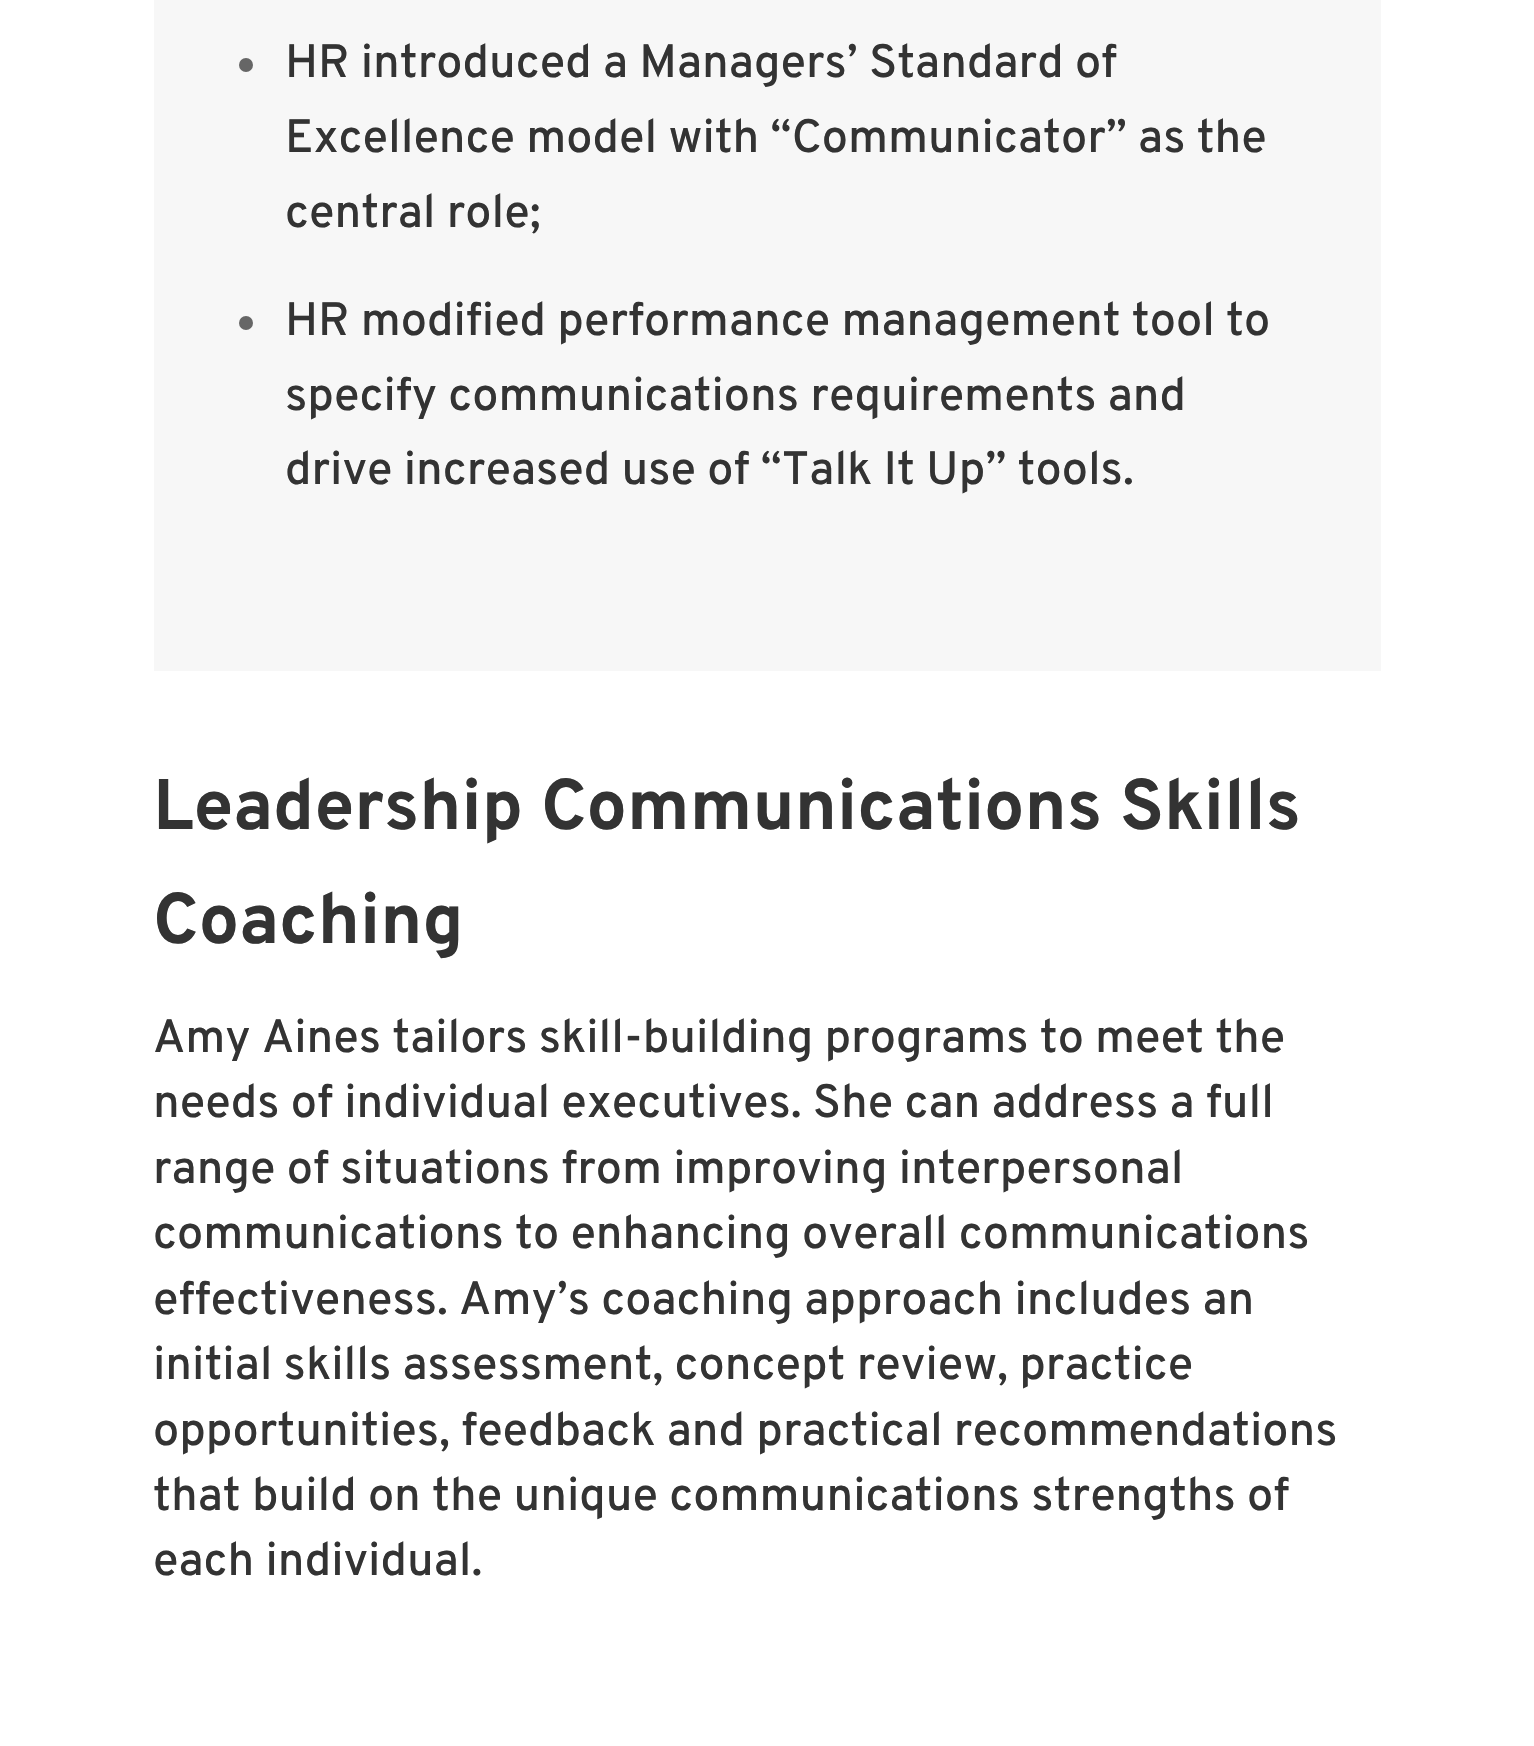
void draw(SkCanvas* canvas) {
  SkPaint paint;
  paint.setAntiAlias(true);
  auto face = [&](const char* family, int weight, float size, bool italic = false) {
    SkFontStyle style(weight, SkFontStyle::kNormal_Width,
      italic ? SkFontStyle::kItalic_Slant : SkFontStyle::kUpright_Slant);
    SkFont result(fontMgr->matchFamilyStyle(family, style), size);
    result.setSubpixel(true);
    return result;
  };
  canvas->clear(0xffffffff);
  paint.setColor(0xfff7f7f7);
  canvas->drawRect(SkRect::MakeXYWH(154, 0, 1227, 671), paint);
  paint.setColor(0xff666666);
  canvas->drawCircle(246, 65, 7, paint);
  canvas->drawCircle(246, 323, 7, paint);
  auto f0 = face("Overpass", 500, 46.75f);
  paint.setColor(0xff333333);
  {
    const struct { const char* s; float x, y; } items[] = {
      {"HR introduced a Managers’ Standard of", 285, 77},
      {"Excellence model with “Communicator” as the", 285, 152},
      {"central role;", 285, 227},
      {"HR modified performance management tool to", 285, 335},
      {"specify communications requirements and", 285, 410},
      {"drive increased use of “Talk It Up” tools.", 285, 484},
    };
    for (auto [s, x, y] : items) {
      canvas->drawString(s, x, y, f0, paint);
    }
  }
  auto f1 = face("Overpass", 700, 71.5f);
  canvas->drawString("Leadership Communications Skills", 153, 829, f1, paint);
  canvas->drawString("Coaching", 153, 943, f1, paint);
  {
    const struct { const char* s; float x, y; } items[] = {
      {"Amy Aines tailors skill-building programs to meet the", 153, 1052},
      {"needs of individual executives. She can address a full", 153, 1117},
      {"range of situations from improving interpersonal", 153, 1183},
      {"communications to enhancing overall communications", 153, 1248},
      {"effectiveness. Amy’s coaching approach includes an", 153, 1314},
      {"initial skills assessment, concept review, practice", 153, 1379},
      {"opportunities, feedback and practical recommendations", 153, 1445},
      {"that build on the unique communications strengths of", 153, 1510},
      {"each individual.", 153, 1575},
    };
    for (auto [s, x, y] : items) {
      canvas->drawString(s, x, y, f0, paint);
    }
  }
}
